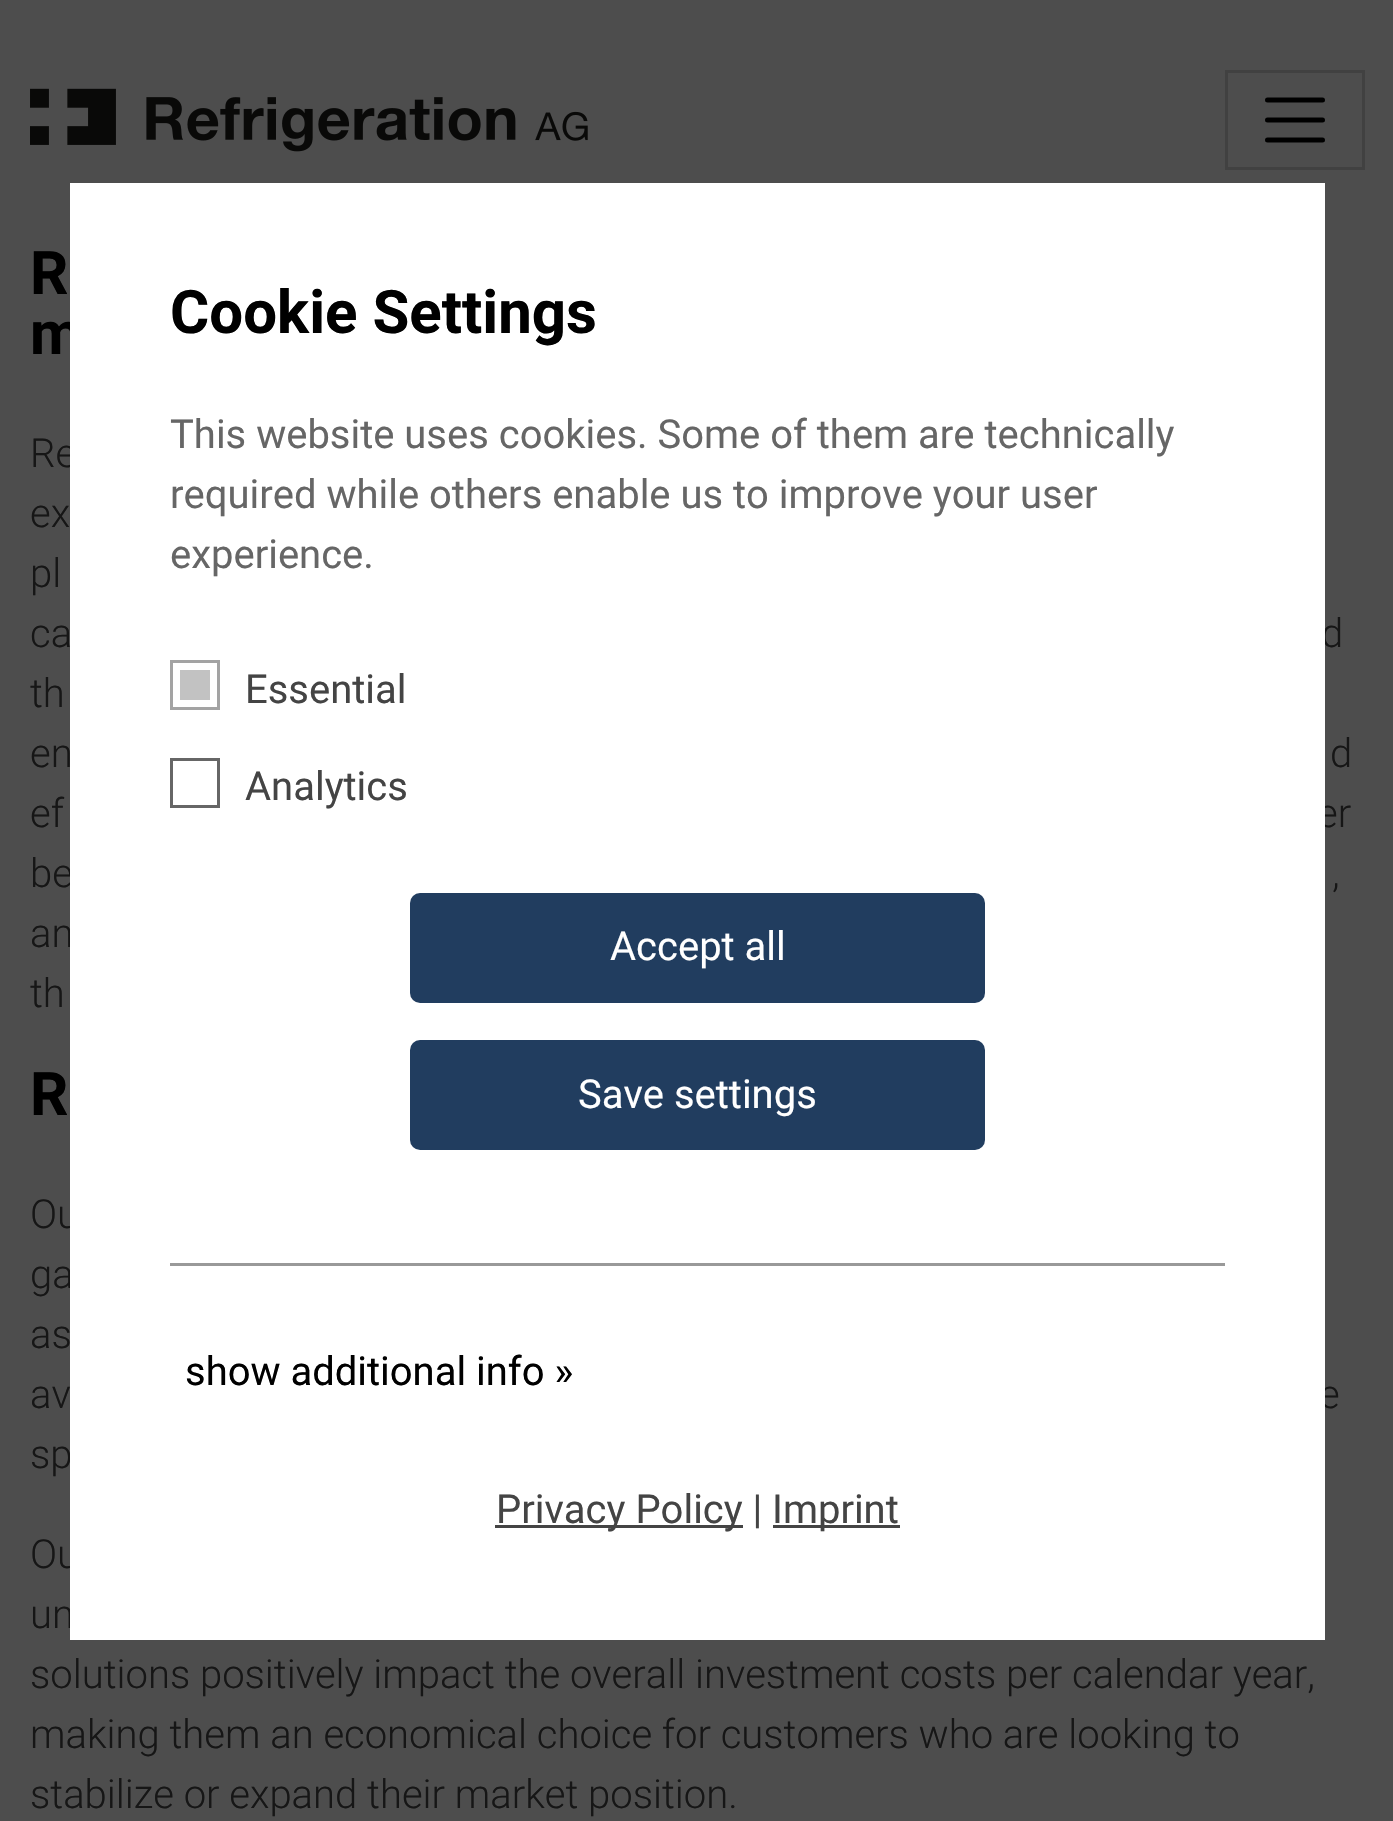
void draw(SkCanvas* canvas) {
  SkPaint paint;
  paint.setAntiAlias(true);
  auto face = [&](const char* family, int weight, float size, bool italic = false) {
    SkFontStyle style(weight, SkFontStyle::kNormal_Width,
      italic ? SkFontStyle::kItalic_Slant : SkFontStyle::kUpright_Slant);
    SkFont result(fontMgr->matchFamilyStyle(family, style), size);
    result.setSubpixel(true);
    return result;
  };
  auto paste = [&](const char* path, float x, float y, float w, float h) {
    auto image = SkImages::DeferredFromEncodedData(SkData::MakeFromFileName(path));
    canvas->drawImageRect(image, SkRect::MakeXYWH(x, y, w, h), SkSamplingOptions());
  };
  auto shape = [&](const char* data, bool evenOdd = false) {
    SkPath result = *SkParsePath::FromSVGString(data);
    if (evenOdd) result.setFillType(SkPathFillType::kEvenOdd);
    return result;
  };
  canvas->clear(0xff4d4d4d);
  paste("img/1.png", 30, 88, 558, 64);
  paint.setStroke(true);
  paint.setStrokeWidth(3);
  paint.setColor(0xff414141);
  canvas->drawRect(SkRect::MakeXYWH(1226.5f, 71.5f, 137, 97), paint);
  paint.setStrokeWidth(5);
  paint.setStrokeCap(SkPaint::kRound_Cap);
  paint.setColor(0xff000000);
  canvas->drawPath(shape("M1267.5 100H1322.5M1267.5 120H1322.5M1267.5 140H1322.5"), paint);
  auto f0 = face("Roboto", 700, 60);
  paint.setStroke(false);
  canvas->drawString("R", 30, 294, f0, paint);
  canvas->drawString("m", 30, 354, f0, paint);
  auto f1 = face("Roboto", 300, 40);
  paint.setColor(0xff161616);
  {
    const struct { const char* s; float x, y; } items[] = {
      {"Re", 30, 467},
      {"ex", 30, 527},
      {"pl", 30, 587},
      {"ca", 30, 647},
      {"d", 1321, 647},
      {"th", 30, 707},
      {"en", 30, 767},
      {"d", 1330, 767},
      {"ef", 30, 827},
      {"er", 1317, 827},
      {"be", 30, 887},
      {",", 1332, 887},
      {"an", 30, 947},
      {"th", 30, 1007},
    };
    for (auto [s, x, y] : items) {
      canvas->drawString(s, x, y, f1, paint);
    }
  }
  paint.setColor(0xff000000);
  canvas->drawString("R", 30, 1115, f0, paint);
  paint.setColor(0xff161616);
  {
    const struct { const char* s; float x, y; } items[] = {
      {"Ou", 30, 1228},
      {"ga", 30, 1288},
      {"as", 30, 1348},
      {"av", 30, 1408},
      {"e", 1319, 1408},
      {"sp", 30, 1468},
      {"Ou", 30, 1568},
      {"un", 30, 1628},
      {"solutions positively impact the overall investment costs per calendar year,", 30, 1688},
      {"making them an economical choice for customers who are looking to", 30, 1748},
      {"stabilize or expand their market position.", 30, 1808},
    };
    for (auto [s, x, y] : items) {
      canvas->drawString(s, x, y, f1, paint);
    }
  }
  paint.setColor(0xffffffff);
  canvas->drawRect(SkRect::MakeXYWH(70, 183, 1255, 1457), paint);
  paint.setColor(0xff000000);
  canvas->drawString("Cookie Settings", 170, 333, f0, paint);
  auto f2 = face("Roboto", 400, 40);
  paint.setColor(0xff666666);
  {
    const struct { const char* s; float x, y; } items[] = {
      {"This website uses cookies. Some of them are technically", 170, 448},
      {"required while others enable us to improve your user", 170, 508},
      {"experience.", 170, 568},
    };
    for (auto [s, x, y] : items) {
      canvas->drawString(s, x, y, f2, paint);
    }
  }
  paint.setStroke(true);
  paint.setStrokeWidth(3);
  paint.setStrokeCap(SkPaint::kButt_Cap);
  paint.setColor(0xffa3a3a3);
  canvas->drawRect(SkRect::MakeXYWH(171.5f, 661.5f, 47, 47), paint);
  paint.setStroke(false);
  paint.setColor(0xffc2c2c2);
  canvas->drawRect(SkRect::MakeXYWH(180, 670, 30, 30), paint);
  paint.setColor(0xff444444);
  canvas->drawString("Essential", 245, 703, f2, paint);
  paint.setStroke(true);
  paint.setColor(0xff666666);
  canvas->drawRect(SkRect::MakeXYWH(171.5f, 759.5f, 47, 47), paint);
  paint.setStroke(false);
  paint.setColor(0xff444444);
  canvas->drawString("Analytics", 245, 800, f2, paint);
  paint.setColor(0xff213d5f);
  canvas->drawRoundRect(SkRect::MakeXYWH(410, 893, 575, 110), 10, 10, paint);
  paint.setColor(0xffffffff);
  canvas->drawString("Accept all", 610, 960, f2, paint);
  paint.setColor(0xff213d5f);
  canvas->drawRoundRect(SkRect::MakeXYWH(410, 1040, 575, 110), 10, 10, paint);
  paint.setColor(0xffffffff);
  canvas->drawString("Save settings", 578, 1108, f2, paint);
  paint.setColor(0xff999999);
  canvas->drawRect(SkRect::MakeXYWH(170, 1263, 1055, 3), paint);
  paint.setColor(0xff000000);
  canvas->drawString("show additional info »", 185, 1385, f2, paint);
  paint.setColor(0xff444444);
  canvas->drawRect(SkRect::MakeXYWH(495, 1525, 248, 3), paint);
  canvas->drawString("Privacy Policy |", 496, 1523, f2, paint);
  canvas->drawRect(SkRect::MakeXYWH(773, 1525, 127, 3), paint);
  canvas->drawString("Imprint", 772, 1523, f2, paint);
}
